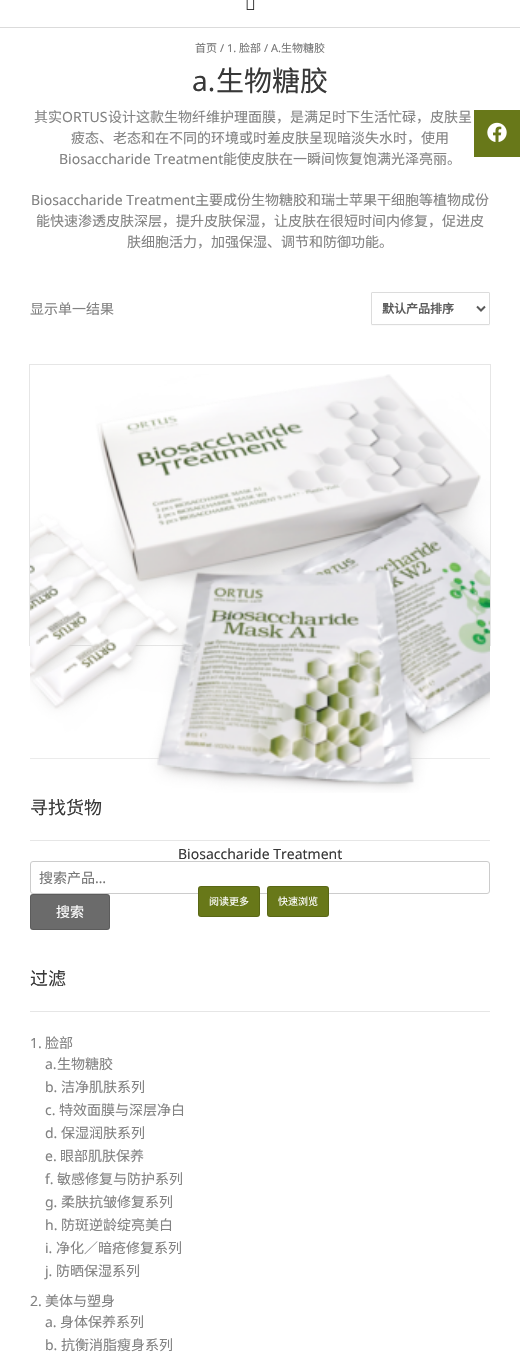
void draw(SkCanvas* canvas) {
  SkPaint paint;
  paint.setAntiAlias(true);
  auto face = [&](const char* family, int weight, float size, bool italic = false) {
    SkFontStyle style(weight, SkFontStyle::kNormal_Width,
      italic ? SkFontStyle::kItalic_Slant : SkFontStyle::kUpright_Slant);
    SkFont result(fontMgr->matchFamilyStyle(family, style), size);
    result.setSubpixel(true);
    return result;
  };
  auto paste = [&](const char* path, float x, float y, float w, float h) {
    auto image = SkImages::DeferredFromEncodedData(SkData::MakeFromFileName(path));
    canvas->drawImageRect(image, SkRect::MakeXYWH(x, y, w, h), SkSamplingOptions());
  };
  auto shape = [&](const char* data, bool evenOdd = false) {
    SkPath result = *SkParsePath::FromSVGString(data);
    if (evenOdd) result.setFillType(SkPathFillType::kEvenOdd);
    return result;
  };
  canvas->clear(0xffffffff);
  paint.setColor(0xffdbdbdb);
  canvas->drawRect(SkRect::MakeXYWH(0, 27, 520, 1), paint);
  paste("img/1.png", 246, 0, 9, 10);
  paint.setColor(0xfffafafa);
  canvas->drawPath(shape("M371 324C371 325 371 326 372 326H489C490 326 490 325 490 324L489 325H372Z"), paint);
  paint.setStroke(true);
  paint.setStrokeWidth(1);
  paint.setColor(0xffdcdcdc);
  canvas->drawRoundRect(SkRect::MakeXYWH(371.5f, 292.5f, 118, 32), 0.5f, 0.5f, paint);
  paint.setStrokeWidth(2);
  paint.setColor(0xff595959);
  canvas->drawPath(shape("M477 306.5L481 310.5L485 306.5"), paint);
  paint.setStrokeWidth(1);
  paint.setColor(0xffe6e6e6);
  canvas->drawRect(SkRect::MakeXYWH(29.5f, 364.5f, 461, 281), paint);
  paint.setStroke(false);
  paint.setColor(0xffebebeb);
  canvas->drawRect(SkRect::MakeXYWH(30, 758, 460, 1), paint);
  paste("img/2.png", 30, 374, 460, 419);
  paint.setStroke(true);
  paint.setColor(0xffcccccc);
  canvas->drawRoundRect(SkRect::MakeXYWH(30.5f, 861.5f, 459, 32), 2.5f, 2.5f, paint);
  paint.setStroke(false);
  paint.setColor(0xff687819);
  canvas->drawRoundRect(SkRect::MakeXYWH(198, 886, 62, 31), 3, 3, paint);
  paint.setStroke(true);
  paint.setColor(0x24000000);
  canvas->drawRoundRect(SkRect::MakeXYWH(198.5f, 886.5f, 61, 30), 2.5f, 2.5f, paint);
  paint.setStroke(false);
  paint.setColor(0xff687819);
  canvas->drawRoundRect(SkRect::MakeXYWH(267, 886, 62, 31), 3, 3, paint);
  paint.setStroke(true);
  paint.setColor(0x24000000);
  canvas->drawRoundRect(SkRect::MakeXYWH(267.5f, 886.5f, 61, 30), 2.5f, 2.5f, paint);
  paint.setStroke(false);
  paint.setColor(0xffe6e6e6);
  canvas->drawRect(SkRect::MakeXYWH(30, 840, 460, 1), paint);
  paint.setColor(0xff6b6b6b);
  canvas->drawRoundRect(SkRect::MakeXYWH(30, 894, 80, 36), 3, 3, paint);
  paint.setStroke(true);
  paint.setColor(0x24000000);
  canvas->drawRoundRect(SkRect::MakeXYWH(30.5f, 894.5f, 79, 35), 2.5f, 2.5f, paint);
  paint.setStroke(false);
  paint.setColor(0xffe6e6e6);
  canvas->drawRect(SkRect::MakeXYWH(30, 1011, 460, 1), paint);
  paint.setColor(0xff687819);
  canvas->drawRect(SkRect::MakeXYWH(474, 110, 46, 47), paint);
  paste("img/3.png", 487, 122, 20, 20);
  auto f0 = face("Noto Sans CJK SC", 400, 11);
  paint.setColor(0xff757575);
  canvas->drawString("首页", 195, 52, f0, paint);
  auto f1 = face("Noto Sans", 400, 11);
  canvas->drawString("/", 220, 52, f1, paint);
  canvas->drawString("1.", 227, 52, f1, paint);
  canvas->drawString("脸部", 239, 52, f0, paint);
  canvas->drawString("/ A.", 264, 52, f1, paint);
  canvas->drawString("生物糖胶", 281, 52, f0, paint);
  auto f2 = face("Noto Sans", 400, 28);
  paint.setColor(0xff383838);
  canvas->drawString("a.", 192, 91, f2, paint);
  auto f3 = face("Noto Sans CJK SC", 400, 28);
  canvas->drawString("生物糖胶", 216, 91, f3, paint);
  auto f4 = face("Noto Sans CJK SC", 400, 14);
  paint.setColor(0xff828282);
  canvas->drawString("其实", 34, 122, f4, paint);
  auto f5 = face("Noto Sans", 400, 14);
  canvas->drawString("ORTUS", 62, 122, f5, paint);
  canvas->drawString("设计这款生物纤维护理面膜，是满足时下生活忙碌，皮肤呈", 108, 122, f4, paint);
  canvas->drawString("疲态、老态和在不同的环境或时差皮肤呈现暗淡失水时，使用", 71, 143, f4, paint);
  canvas->drawString("Biosaccharide Treatment", 59, 164, f5, paint);
  canvas->drawString("能使皮肤在一瞬间恢复饱满光泽亮丽。", 223, 164, f4, paint);
  canvas->drawString("Biosaccharide Treatment", 31, 205, f5, paint);
  {
    const struct { const char* s; float x, y; } items[] = {
      {"主要成份生物糖胶和瑞士苹果干细胞等植物成份", 195, 205},
      {"能快速渗透皮肤深层，提升皮肤保湿，让皮肤在很短时间内修复，促进皮", 36, 226},
      {"肤细胞活力，加强保湿、调节和防御功能。", 127, 247},
      {"显示单一结果", 30, 314},
    };
    for (auto [s, x, y] : items) {
      canvas->drawString(s, x, y, f4, paint);
    }
  }
  auto f6 = face("Noto Sans CJK SC", 700, 12);
  paint.setColor(0xff595959);
  canvas->drawString("默认产品排序", 382, 313, f6, paint);
  paint.setColor(0xff383838);
  canvas->drawString("Biosaccharide Treatment", 178, 859, f5, paint);
  auto f7 = face("Noto Sans CJK SC", 400, 10);
  paint.setColor(0xffffffff);
  canvas->drawString("阅读更多", 209, 905, f7, paint);
  canvas->drawString("快速浏览", 278, 905, f7, paint);
  auto f8 = face("Noto Sans CJK SC", 400, 18);
  paint.setColor(0xff383838);
  canvas->drawString("寻找货物", 30, 814, f8, paint);
  paint.setColor(0xff757575);
  canvas->drawString("搜索产品", 39, 883, f4, paint);
  canvas->drawString("…", 95, 883, f5, paint);
  paint.setColor(0xffffffff);
  canvas->drawString("搜索", 56, 917, f4, paint);
  paint.setColor(0xff383838);
  canvas->drawString("过滤", 30, 985, f8, paint);
  paint.setColor(0xff828282);
  canvas->drawString("1.", 30, 1048, f5, paint);
  canvas->drawString("脸部", 45, 1048, f4, paint);
  canvas->drawString("a.", 45, 1069, f5, paint);
  canvas->drawString("生物糖胶", 57, 1069, f4, paint);
  canvas->drawString("b.", 45, 1092, f5, paint);
  canvas->drawString("洁净肌肤系列", 61, 1092, f4, paint);
  canvas->drawString("c.", 45, 1115, f5, paint);
  canvas->drawString("特效面膜与深层净白", 59, 1115, f4, paint);
  canvas->drawString("d.", 45, 1138, f5, paint);
  canvas->drawString("保湿润肤系列", 61, 1138, f4, paint);
  canvas->drawString("e.", 45, 1161, f5, paint);
  canvas->drawString("眼部肌肤保养", 60, 1161, f4, paint);
  canvas->drawString("f.", 45, 1184, f5, paint);
  canvas->drawString("敏感修复与防护系列", 57, 1184, f4, paint);
  canvas->drawString("g.", 45, 1207, f5, paint);
  canvas->drawString("柔肤抗皱修复系列", 61, 1207, f4, paint);
  canvas->drawString("h.", 45, 1230, f5, paint);
  canvas->drawString("防斑逆龄绽亮美白", 61, 1230, f4, paint);
  canvas->drawString("i.", 45, 1253, f5, paint);
  canvas->drawString("净化／暗疮修复系列", 56, 1253, f4, paint);
  canvas->drawString("j.", 45, 1276, f5, paint);
  canvas->drawString("防晒保湿系列", 56, 1276, f4, paint);
  canvas->drawString("2.", 30, 1306, f5, paint);
  canvas->drawString("美体与塑身", 45, 1306, f4, paint);
  canvas->drawString("a.", 45, 1327, f5, paint);
  canvas->drawString("身体保养系列", 60, 1327, f4, paint);
  canvas->drawString("b.", 45, 1350, f5, paint);
  canvas->drawString("抗衡消脂瘦身系列", 61, 1350, f4, paint);
}
